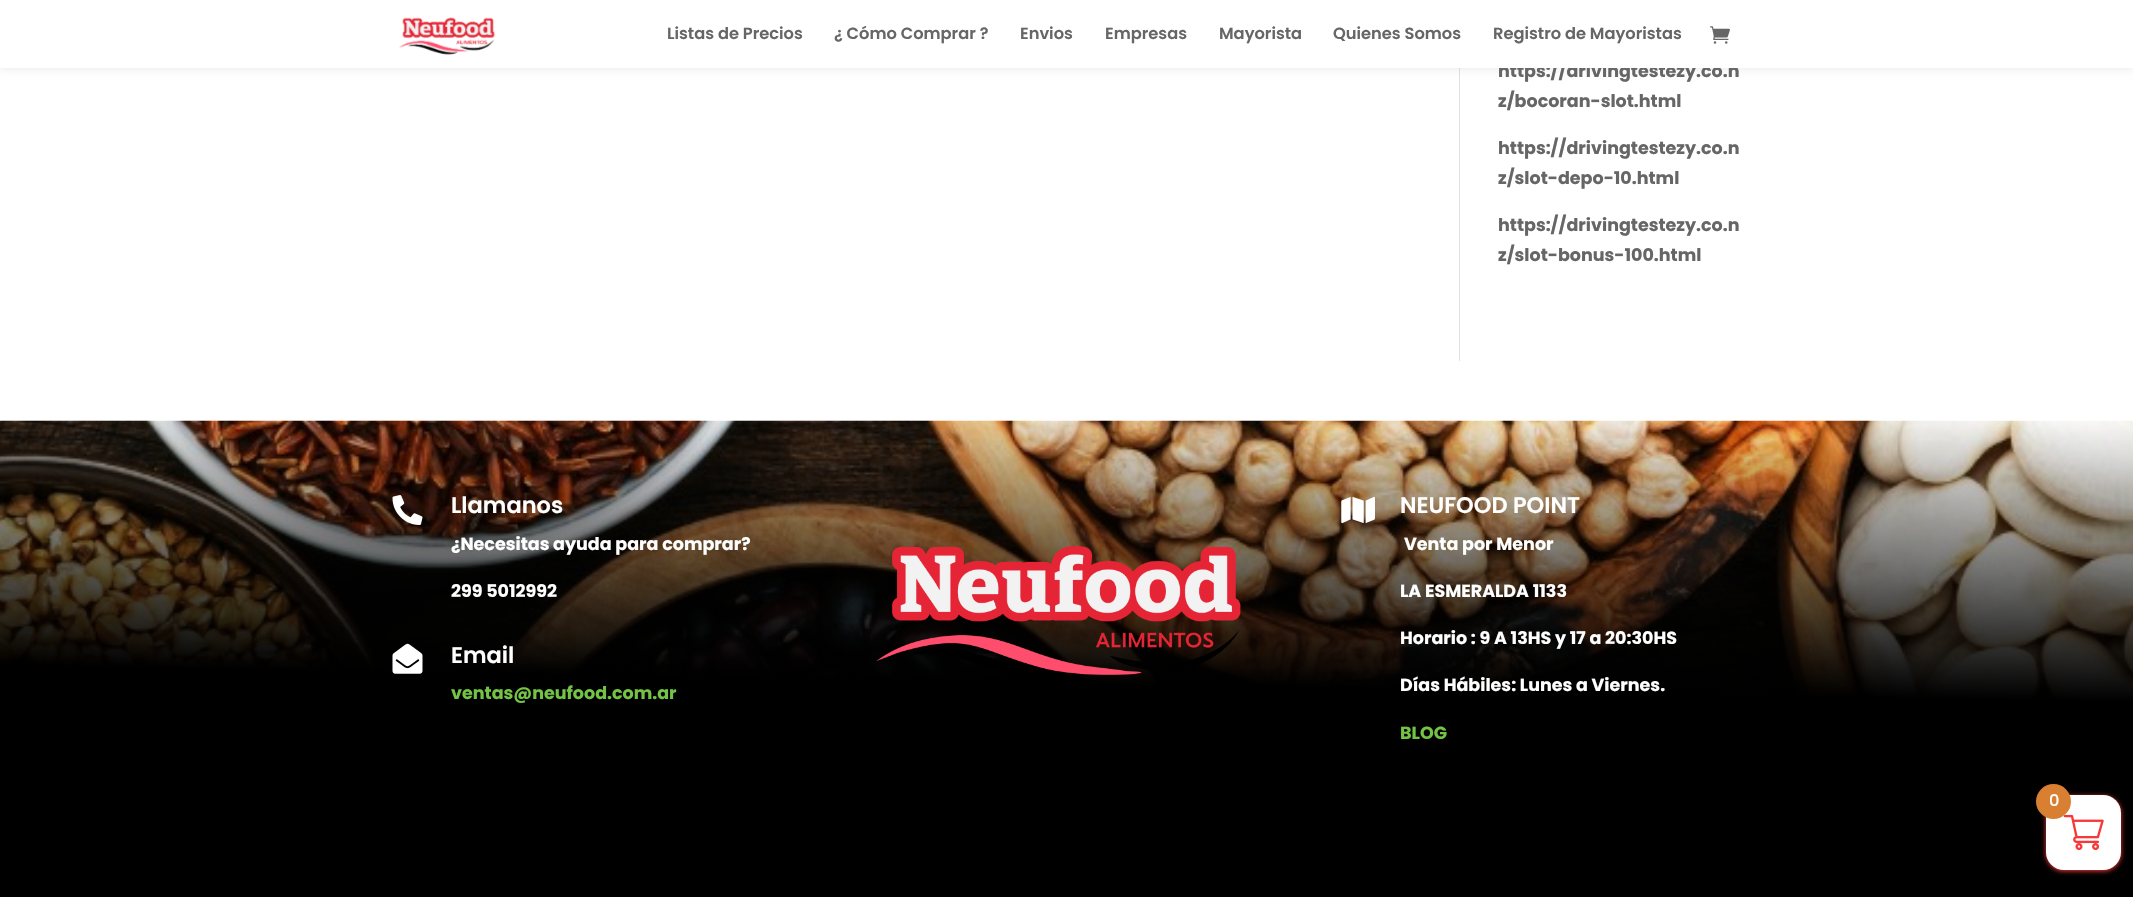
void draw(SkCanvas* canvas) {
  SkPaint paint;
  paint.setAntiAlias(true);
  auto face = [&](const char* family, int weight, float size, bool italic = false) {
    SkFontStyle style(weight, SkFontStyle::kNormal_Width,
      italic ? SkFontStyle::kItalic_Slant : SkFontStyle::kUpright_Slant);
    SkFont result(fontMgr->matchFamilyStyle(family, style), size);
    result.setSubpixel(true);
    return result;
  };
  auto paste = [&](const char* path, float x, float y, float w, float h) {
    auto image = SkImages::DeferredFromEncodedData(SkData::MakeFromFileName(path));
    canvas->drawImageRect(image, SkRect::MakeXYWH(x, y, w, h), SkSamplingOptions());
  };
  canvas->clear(0xffffffff);
  paint.setColor(0xffe2e2e2);
  canvas->drawRect(SkRect::MakeXYWH(1459, 68, 1, 293), paint);
  paint.setColor(0x1a000000);
  paint.setMaskFilter(SkMaskFilter::MakeBlur(kNormal_SkBlurStyle, 4.5f));
  canvas->drawRect(SkRect::MakeXYWH(0, 0, 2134, 68), paint);
  paint.setMaskFilter(nullptr);
  paste("img/3.png", 0, 420, 2133, 477);
  paste("img/4.png", 392, 495, 31, 30);
  paste("img/5.png", 392, 643, 31, 31);
  paste("img/6.png", 876, 546, 365, 140);
  paste("img/7.png", 1341, 496, 34, 28);
  paint.setColor(0xfff73838);
  paint.setMaskFilter(SkMaskFilter::MakeBlur(kNormal_SkBlurStyle, 2.5f));
  canvas->drawRoundRect(SkRect::MakeXYWH(2046, 796, 75, 75), 18, 18, paint);
  paint.setMaskFilter(nullptr);
  paint.setColor(0xffffffff);
  canvas->drawRoundRect(SkRect::MakeXYWH(2046, 795, 75, 75), 18, 18, paint);
  paste("img/8.png", 2063, 814, 41, 37);
  paint.setColor(0xffd87f31);
  canvas->drawCircle(2053.5f, 801.5f, 17.5f, paint);
  auto f0 = face("Poppins", 700, 17.5f);
  paint.setColor(0xff666666);
  canvas->drawString("https://drivingtestezy.co.n", 1498, 77, f0, paint);
  paint.setColor(0xffffffff);
  canvas->drawRect(SkRect::MakeXYWH(0, 0, 2133, 68), paint);
  paste("img/2.png", 1710, 26, 20, 18);
  auto f1 = face("Poppins", 600, 16.25f);
  paint.setColor(0xff666666);
  {
    const struct { const char* s; float x, y; } items[] = {
      {"Registro de Mayoristas", 1493, 39},
      {"Quienes Somos", 1333, 39},
      {"Mayorista", 1219, 39},
      {"Empresas", 1105, 39},
      {"Envios", 1020, 39},
      {"¿ Cómo Comprar ?", 834, 39},
      {"Listas de Precios", 667, 39},
    };
    for (auto [s, x, y] : items) {
      canvas->drawString(s, x, y, f1, paint);
    }
  }
  paste("img/1.png", 399, 17, 97, 38);
  {
    const struct { const char* s; float x, y; } items[] = {
      {"z/bocoran-slot.html", 1498, 107},
      {"https://drivingtestezy.co.n", 1498, 154},
      {"z/slot-depo-10.html", 1498, 184},
      {"https://drivingtestezy.co.n", 1498, 231},
      {"z/slot-bonus-100.html", 1498, 261},
    };
    for (auto [s, x, y] : items) {
      canvas->drawString(s, x, y, f0, paint);
    }
  }
  auto f2 = face("Poppins", 600, 22.5f);
  paint.setColor(0xffffffff);
  canvas->drawString("Llamanos", 451, 513, f2, paint);
  canvas->drawString("¿Necesitas ayuda para comprar?", 451, 550, f0, paint);
  canvas->drawString("299 5012992", 451, 597, f0, paint);
  canvas->drawString("Email", 451, 663, f2, paint);
  paint.setColor(0xff73c345);
  canvas->drawString("ventas@neufood.com.ar", 451, 699, f0, paint);
  paint.setColor(0xffffffff);
  canvas->drawString("NEUFOOD POINT", 1400, 513, f2, paint);
  {
    const struct { const char* s; float x, y; } items[] = {
      {"Venta por Menor", 1404, 550},
      {"LA ESMERALDA 1133", 1400, 597},
      {"Horario : 9 A 13HS y 17 a 20:30HS", 1400, 644},
      {"Días Hábiles: Lunes a Viernes.", 1400, 691},
    };
    for (auto [s, x, y] : items) {
      canvas->drawString(s, x, y, f0, paint);
    }
  }
  paint.setColor(0xff73c345);
  canvas->drawString("BLOG", 1400, 739, f0, paint);
  auto f3 = face("Poppins", 500, 16.25f);
  paint.setColor(0xffffffff);
  canvas->drawString("0", 2049, 806, f3, paint);
}
